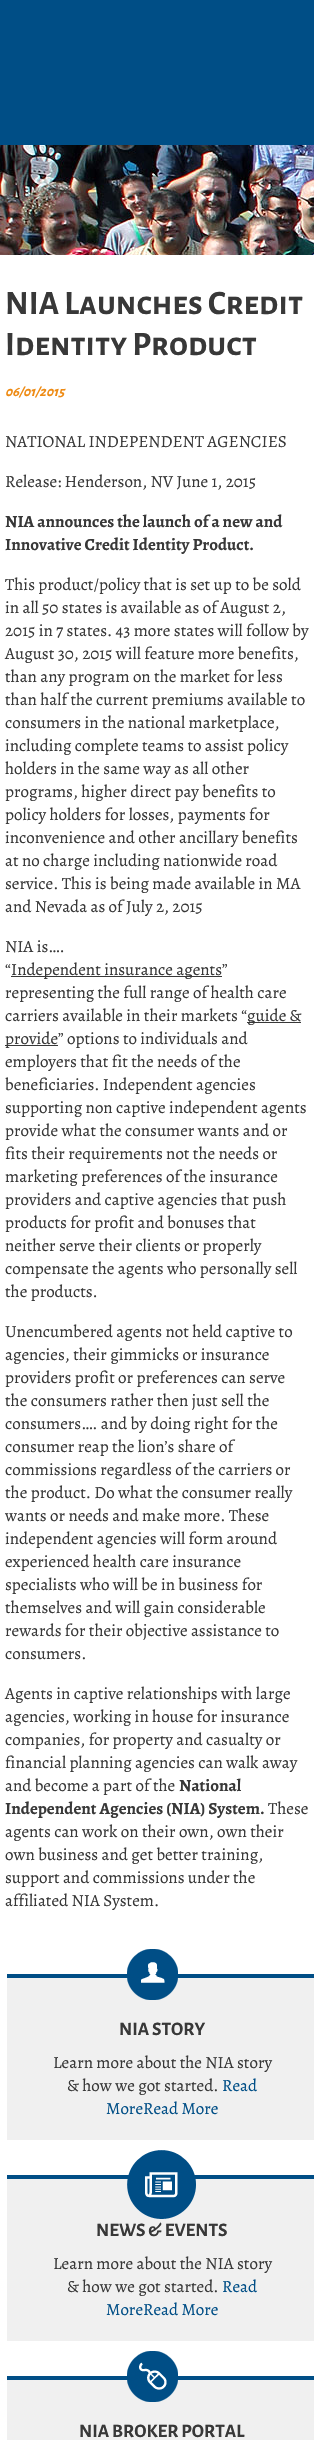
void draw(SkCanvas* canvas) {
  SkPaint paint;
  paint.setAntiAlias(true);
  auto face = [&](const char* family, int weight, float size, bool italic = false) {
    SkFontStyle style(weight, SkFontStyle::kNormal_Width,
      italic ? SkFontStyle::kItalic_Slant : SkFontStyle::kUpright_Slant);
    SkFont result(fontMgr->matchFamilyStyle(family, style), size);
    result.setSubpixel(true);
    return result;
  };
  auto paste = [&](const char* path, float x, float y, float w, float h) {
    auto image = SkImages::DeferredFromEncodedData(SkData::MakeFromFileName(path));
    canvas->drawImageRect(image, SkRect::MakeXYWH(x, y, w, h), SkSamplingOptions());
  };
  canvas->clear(0xffffffff);
  paint.setColor(0xff004e86);
  canvas->drawRect(SkRect::MakeXYWH(0, 0, 314, 145), paint);
  paste("img/1.png", 0, 145, 314, 110);
  {
    const struct { float x, y, w, h; SkColor color; } items[] = {
      {11, 976, 211, 1, 0xff383838},
      {247, 1022, 54, 1, 0xff383838},
      {5, 1045, 53, 1, 0xff383838},
      {7, 1978, 307, 162, 0xfff0f0f0},
      {7, 1974, 307, 4, 0xff004e86},
    };
    for (auto [x, y, w, h, color] : items) {
      paint.setColor(color);
      canvas->drawRect(SkRect::MakeXYWH(x, y, w, h), paint);
    }
  }
  paste("img/2.png", 127, 1949, 51, 51);
  paint.setColor(0xfff0f0f0);
  canvas->drawRect(SkRect::MakeXYWH(7, 2179, 307, 162), paint);
  paint.setColor(0xff004e86);
  canvas->drawRect(SkRect::MakeXYWH(7, 2175, 307, 4), paint);
  paste("img/3.png", 127, 2150, 69, 69);
  paint.setColor(0xfff0f0f0);
  canvas->drawRect(SkRect::MakeXYWH(7, 2380, 307, 60), paint);
  paint.setColor(0xff004e86);
  canvas->drawRect(SkRect::MakeXYWH(7, 2376, 307, 4), paint);
  paste("img/4.png", 127, 2351, 51, 51);
  auto f0 = face("Alegreya Sans SC", 700, 34);
  paint.setColor(0xff383838);
  canvas->drawString("NIA Launches Credit", 5, 314, f0, paint);
  canvas->drawString("Identity Product", 5, 355, f0, paint);
  auto f1 = face("Alegreya Sans SC", 700, 14, true);
  paint.setColor(0xffee8b14);
  canvas->drawString("06/01/2015", 5, 396, f1, paint);
  auto f2 = face("Alegreya", 400, 17);
  paint.setColor(0xff383838);
  canvas->drawString("NATIONAL INDEPENDENT AGENCIES", 5, 447, f2, paint);
  canvas->drawString("Release: Henderson, NV June 1, 2015", 5, 487, f2, paint);
  auto f3 = face("Alegreya", 700, 17);
  canvas->drawString("NIA announces the launch of a new and", 5, 527, f3, paint);
  canvas->drawString("Innovative Credit Identity Product.", 5, 550, f3, paint);
  {
    const struct { const char* s; float x, y; } items[] = {
      {"This product/policy that is set up to be sold", 5, 590},
      {"in all 50 states is available as of August 2,", 5, 613},
      {"2015 in 7 states. 43 more states will follow by", 5, 636},
      {"August 30, 2015 will feature more benefits,", 5, 659},
      {"than any program on the market for less", 5, 682},
      {"than half the current premiums available to", 5, 705},
      {"consumers in the national marketplace,", 5, 728},
      {"including complete teams to assist policy", 5, 751},
      {"holders in the same way as all other", 5, 774},
      {"programs, higher direct pay benefits to", 5, 797},
      {"policy holders for losses, payments for", 5, 820},
      {"inconvenience and other ancillary benefits", 5, 843},
      {"at no charge including nationwide road", 5, 866},
      {"service. This is being made available in MA", 5, 889},
      {"and Nevada as of July 2, 2015", 5, 912},
      {"NIA is….", 5, 952},
      {"“", 5, 975},
      {"Independent insurance agents”", 11, 975},
      {"representing the full range of health care", 5, 998},
      {"carriers available in their markets “", 5, 1021},
      {"guide &", 247, 1021},
      {"provide” options to individuals and", 5, 1044},
      {"employers that fit the needs of the", 5, 1067},
      {"beneficiaries. Independent agencies", 5, 1090},
      {"supporting non captive independent agents", 5, 1113},
      {"provide what the consumer wants and or", 5, 1136},
      {"fits their requirements not the needs or", 5, 1159},
      {"marketing preferences of the insurance", 5, 1182},
      {"providers and captive agencies that push", 5, 1205},
      {"products for profit and bonuses that", 5, 1228},
      {"neither serve their clients or properly", 5, 1251},
      {"compensate the agents who personally sell", 5, 1274},
      {"the products.", 5, 1297},
      {"Unencumbered agents not held captive to", 5, 1337},
      {"agencies, their gimmicks or insurance", 5, 1360},
      {"providers profit or preferences can serve", 5, 1383},
      {"the consumers rather then just sell the", 5, 1406},
      {"consumers…. and by doing right for the", 5, 1429},
      {"consumer reap the lion’s share of", 5, 1452},
      {"commissions regardless of the carriers or", 5, 1475},
      {"the product. Do what the consumer really", 5, 1498},
      {"wants or needs and make more. These", 5, 1521},
      {"independent agencies will form around", 5, 1544},
      {"experienced health care insurance", 5, 1567},
      {"specialists who will be in business for", 5, 1590},
      {"themselves and will gain considerable", 5, 1613},
      {"rewards for their objective assistance to", 5, 1636},
      {"consumers.", 5, 1659},
      {"Agents in captive relationships with large", 5, 1699},
      {"agencies, working in house for insurance", 5, 1722},
      {"companies, for property and casualty or", 5, 1745},
      {"financial planning agencies can walk away", 5, 1768},
      {"and become a part of the", 5, 1791},
    };
    for (auto [s, x, y] : items) {
      canvas->drawString(s, x, y, f2, paint);
    }
  }
  canvas->drawString("National", 179, 1791, f3, paint);
  canvas->drawString("Independent Agencies (NIA) System.", 5, 1814, f3, paint);
  {
    const struct { const char* s; float x, y; } items[] = {
      {"These", 268, 1814},
      {"agents can work on their own, own their", 5, 1837},
      {"own business and get better training,", 5, 1860},
      {"support and commissions under the", 5, 1883},
      {"affiliated NIA System.", 5, 1906},
    };
    for (auto [s, x, y] : items) {
      canvas->drawString(s, x, y, f2, paint);
    }
  }
  auto f4 = face("Alegreya Sans SC", 700, 19);
  canvas->drawString("NIA STORY", 119, 2035, f4, paint);
  canvas->drawString("Learn more about the NIA story", 53, 2068, f2, paint);
  canvas->drawString("& how we got started.", 67, 2091, f2, paint);
  paint.setColor(0xff004e86);
  canvas->drawString("Read", 222, 2091, f2, paint);
  canvas->drawString("MoreRead More", 106, 2114, f2, paint);
  paint.setColor(0xff383838);
  canvas->drawString("NEWS & EVENTS", 96, 2236, f4, paint);
  canvas->drawString("Learn more about the NIA story", 53, 2269, f2, paint);
  canvas->drawString("& how we got started.", 67, 2292, f2, paint);
  paint.setColor(0xff004e86);
  canvas->drawString("Read", 222, 2292, f2, paint);
  canvas->drawString("MoreRead More", 106, 2315, f2, paint);
  paint.setColor(0xff383838);
  canvas->drawString("NIA BROKER PORTAL", 79, 2437, f4, paint);
}
